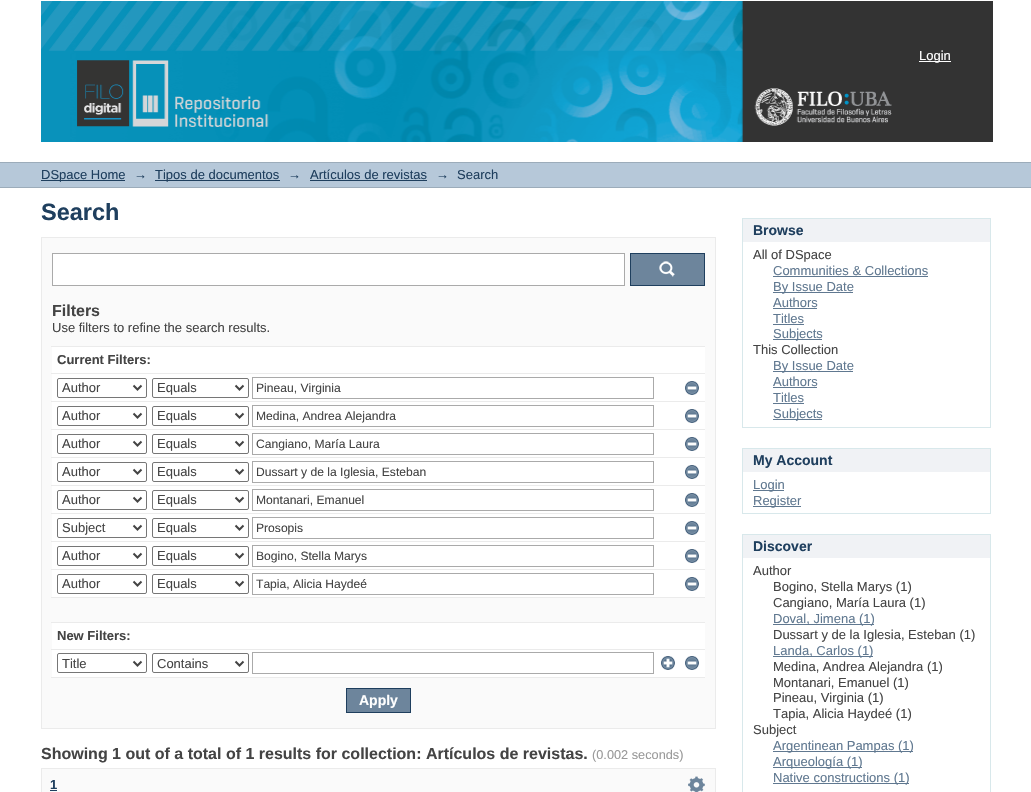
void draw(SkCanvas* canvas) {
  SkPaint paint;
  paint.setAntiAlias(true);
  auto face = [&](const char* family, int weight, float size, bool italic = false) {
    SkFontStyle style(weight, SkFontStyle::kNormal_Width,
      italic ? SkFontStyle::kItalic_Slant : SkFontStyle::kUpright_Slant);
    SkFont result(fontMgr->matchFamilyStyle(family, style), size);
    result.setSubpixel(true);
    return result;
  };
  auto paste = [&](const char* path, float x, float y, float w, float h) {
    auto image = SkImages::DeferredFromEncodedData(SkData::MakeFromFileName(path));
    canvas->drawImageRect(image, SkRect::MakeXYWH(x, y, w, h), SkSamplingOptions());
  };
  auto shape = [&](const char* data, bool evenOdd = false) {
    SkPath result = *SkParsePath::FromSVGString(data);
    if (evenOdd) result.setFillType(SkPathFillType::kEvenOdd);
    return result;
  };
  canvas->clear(0xffffffff);
  paste("img/1.png", 41, 1, 952, 141);
  {
    const struct { float x, y, w, h; SkColor color; } items[] = {
      {919, 61, 32, 1, 0xffffffff},
      {0, 163, 1031, 24, 0xffb6c8d9},
      {0, 162, 1031, 1, 0xff9cacba},
      {0, 187, 1031, 1, 0xff9cacba},
      {41, 180, 84, 1, 0xff1f3f5e},
      {155, 180, 125, 1, 0xff1f3f5e},
      {310, 180, 117, 1, 0xff1f3f5e},
    };
    for (auto [x, y, w, h, color] : items) {
      paint.setColor(color);
      canvas->drawRect(SkRect::MakeXYWH(x, y, w, h), paint);
    }
  }
  paint.setColor(0xfffafafa);
  canvas->drawRect(SkRect::MakeXYWH(41.5f, 237.5f, 674, 491), paint);
  paint.setStroke(true);
  paint.setStrokeWidth(1);
  paint.setColor(0xffebebeb);
  canvas->drawRect(SkRect::MakeXYWH(41.5f, 237.5f, 674, 491), paint);
  paint.setStroke(false);
  paint.setColor(0xffffffff);
  canvas->drawRect(SkRect::MakeXYWH(52.5f, 253.5f, 572, 32), paint);
  paint.setStroke(true);
  paint.setColor(0xffaaaaaa);
  canvas->drawRect(SkRect::MakeXYWH(52.5f, 253.5f, 572, 32), paint);
  paint.setStroke(false);
  paint.setColor(0xff6d859c);
  canvas->drawRect(SkRect::MakeXYWH(631, 254, 73, 31), paint);
  paste("img/2.png", 659, 261, 16, 16);
  paint.setStroke(true);
  paint.setColor(0xff1f3f5e);
  canvas->drawRect(SkRect::MakeXYWH(630.5f, 253.5f, 74, 32), paint);
  paint.setStroke(false);
  {
    const struct { float x, y, w, h; SkColor color; } items[] = {
      {52, 347, 653, 330, 0xffffffff},
      {51, 346, 654, 1, 0xffebebeb},
      {51, 373, 654, 1, 0xffebebeb},
    };
    for (auto [x, y, w, h, color] : items) {
      paint.setColor(color);
      canvas->drawRect(SkRect::MakeXYWH(x, y, w, h), paint);
    }
  }
  paint.setStroke(true);
  paint.setColor(0xff767676);
  canvas->drawRoundRect(SkRect::MakeXYWH(57.5f, 378.5f, 89, 19), 1.5f, 1.5f, paint);
  paint.setStrokeWidth(2);
  paint.setColor(0xff444444);
  canvas->drawPath(shape("M133.5 385.5L137.5 389.5L141.5 385.5"), paint);
  paint.setStrokeWidth(1);
  paint.setColor(0xff767676);
  canvas->drawRoundRect(SkRect::MakeXYWH(152.5f, 378.5f, 96, 19), 1.5f, 1.5f, paint);
  paint.setStrokeWidth(2);
  paint.setColor(0xff444444);
  canvas->drawPath(shape("M235.5 385.5L239.5 389.5L243.5 385.5"), paint);
  paint.setStrokeWidth(1);
  paint.setColor(0xffaaaaaa);
  canvas->drawRect(SkRect::MakeXYWH(252.5f, 377.5f, 401, 21), paint);
  paste("img/3.png", 685, 381, 14, 14);
  paint.setStroke(false);
  paint.setColor(0xffebebeb);
  canvas->drawRect(SkRect::MakeXYWH(51, 401, 654, 1), paint);
  paint.setStroke(true);
  paint.setColor(0xff767676);
  canvas->drawRoundRect(SkRect::MakeXYWH(57.5f, 406.5f, 89, 19), 1.5f, 1.5f, paint);
  paint.setStrokeWidth(2);
  paint.setColor(0xff444444);
  canvas->drawPath(shape("M133.5 413.5L137.5 417.5L141.5 413.5"), paint);
  paint.setStrokeWidth(1);
  paint.setColor(0xff767676);
  canvas->drawRoundRect(SkRect::MakeXYWH(152.5f, 406.5f, 96, 19), 1.5f, 1.5f, paint);
  paint.setStrokeWidth(2);
  paint.setColor(0xff444444);
  canvas->drawPath(shape("M235.5 413.5L239.5 417.5L243.5 413.5"), paint);
  paint.setStrokeWidth(1);
  paint.setColor(0xffaaaaaa);
  canvas->drawRect(SkRect::MakeXYWH(252.5f, 405.5f, 401, 21), paint);
  paste("img/3.png", 685, 409, 14, 14);
  paint.setStroke(false);
  paint.setColor(0xffebebeb);
  canvas->drawRect(SkRect::MakeXYWH(51, 429, 654, 1), paint);
  paint.setStroke(true);
  paint.setColor(0xff767676);
  canvas->drawRoundRect(SkRect::MakeXYWH(57.5f, 434.5f, 89, 19), 1.5f, 1.5f, paint);
  paint.setStrokeWidth(2);
  paint.setColor(0xff444444);
  canvas->drawPath(shape("M133.5 441.5L137.5 445.5L141.5 441.5"), paint);
  paint.setStrokeWidth(1);
  paint.setColor(0xff767676);
  canvas->drawRoundRect(SkRect::MakeXYWH(152.5f, 434.5f, 96, 19), 1.5f, 1.5f, paint);
  paint.setStrokeWidth(2);
  paint.setColor(0xff444444);
  canvas->drawPath(shape("M235.5 441.5L239.5 445.5L243.5 441.5"), paint);
  paint.setStrokeWidth(1);
  paint.setColor(0xffaaaaaa);
  canvas->drawRect(SkRect::MakeXYWH(252.5f, 433.5f, 401, 21), paint);
  paste("img/3.png", 685, 437, 14, 14);
  paint.setStroke(false);
  paint.setColor(0xffebebeb);
  canvas->drawRect(SkRect::MakeXYWH(51, 457, 654, 1), paint);
  paint.setStroke(true);
  paint.setColor(0xff767676);
  canvas->drawRoundRect(SkRect::MakeXYWH(57.5f, 462.5f, 89, 19), 1.5f, 1.5f, paint);
  paint.setStrokeWidth(2);
  paint.setColor(0xff444444);
  canvas->drawPath(shape("M133.5 469.5L137.5 473.5L141.5 469.5"), paint);
  paint.setStrokeWidth(1);
  paint.setColor(0xff767676);
  canvas->drawRoundRect(SkRect::MakeXYWH(152.5f, 462.5f, 96, 19), 1.5f, 1.5f, paint);
  paint.setStrokeWidth(2);
  paint.setColor(0xff444444);
  canvas->drawPath(shape("M235.5 469.5L239.5 473.5L243.5 469.5"), paint);
  paint.setStrokeWidth(1);
  paint.setColor(0xffaaaaaa);
  canvas->drawRect(SkRect::MakeXYWH(252.5f, 461.5f, 401, 21), paint);
  paste("img/3.png", 685, 465, 14, 14);
  paint.setStroke(false);
  paint.setColor(0xffebebeb);
  canvas->drawRect(SkRect::MakeXYWH(51, 485, 654, 1), paint);
  paint.setStroke(true);
  paint.setColor(0xff767676);
  canvas->drawRoundRect(SkRect::MakeXYWH(57.5f, 490.5f, 89, 19), 1.5f, 1.5f, paint);
  paint.setStrokeWidth(2);
  paint.setColor(0xff444444);
  canvas->drawPath(shape("M133.5 497.5L137.5 501.5L141.5 497.5"), paint);
  paint.setStrokeWidth(1);
  paint.setColor(0xff767676);
  canvas->drawRoundRect(SkRect::MakeXYWH(152.5f, 490.5f, 96, 19), 1.5f, 1.5f, paint);
  paint.setStrokeWidth(2);
  paint.setColor(0xff444444);
  canvas->drawPath(shape("M235.5 497.5L239.5 501.5L243.5 497.5"), paint);
  paint.setStrokeWidth(1);
  paint.setColor(0xffaaaaaa);
  canvas->drawRect(SkRect::MakeXYWH(252.5f, 489.5f, 401, 21), paint);
  paste("img/3.png", 685, 493, 14, 14);
  paint.setStroke(false);
  paint.setColor(0xffebebeb);
  canvas->drawRect(SkRect::MakeXYWH(51, 513, 654, 1), paint);
  paint.setStroke(true);
  paint.setColor(0xff767676);
  canvas->drawRoundRect(SkRect::MakeXYWH(57.5f, 518.5f, 89, 19), 1.5f, 1.5f, paint);
  paint.setStrokeWidth(2);
  paint.setColor(0xff444444);
  canvas->drawPath(shape("M133.5 525.5L137.5 529.5L141.5 525.5"), paint);
  paint.setStrokeWidth(1);
  paint.setColor(0xff767676);
  canvas->drawRoundRect(SkRect::MakeXYWH(152.5f, 518.5f, 96, 19), 1.5f, 1.5f, paint);
  paint.setStrokeWidth(2);
  paint.setColor(0xff444444);
  canvas->drawPath(shape("M235.5 525.5L239.5 529.5L243.5 525.5"), paint);
  paint.setStrokeWidth(1);
  paint.setColor(0xffaaaaaa);
  canvas->drawRect(SkRect::MakeXYWH(252.5f, 517.5f, 401, 21), paint);
  paste("img/3.png", 685, 521, 14, 14);
  paint.setStroke(false);
  paint.setColor(0xffebebeb);
  canvas->drawRect(SkRect::MakeXYWH(51, 541, 654, 1), paint);
  paint.setStroke(true);
  paint.setColor(0xff767676);
  canvas->drawRoundRect(SkRect::MakeXYWH(57.5f, 546.5f, 89, 19), 1.5f, 1.5f, paint);
  paint.setStrokeWidth(2);
  paint.setColor(0xff444444);
  canvas->drawPath(shape("M133.5 553.5L137.5 557.5L141.5 553.5"), paint);
  paint.setStrokeWidth(1);
  paint.setColor(0xff767676);
  canvas->drawRoundRect(SkRect::MakeXYWH(152.5f, 546.5f, 96, 19), 1.5f, 1.5f, paint);
  paint.setStrokeWidth(2);
  paint.setColor(0xff444444);
  canvas->drawPath(shape("M235.5 553.5L239.5 557.5L243.5 553.5"), paint);
  paint.setStrokeWidth(1);
  paint.setColor(0xffaaaaaa);
  canvas->drawRect(SkRect::MakeXYWH(252.5f, 545.5f, 401, 21), paint);
  paste("img/3.png", 685, 549, 14, 14);
  paint.setStroke(false);
  paint.setColor(0xffebebeb);
  canvas->drawRect(SkRect::MakeXYWH(51, 569, 654, 1), paint);
  paint.setStroke(true);
  paint.setColor(0xff767676);
  canvas->drawRoundRect(SkRect::MakeXYWH(57.5f, 574.5f, 89, 19), 1.5f, 1.5f, paint);
  paint.setStrokeWidth(2);
  paint.setColor(0xff444444);
  canvas->drawPath(shape("M133.5 581.5L137.5 585.5L141.5 581.5"), paint);
  paint.setStrokeWidth(1);
  paint.setColor(0xff767676);
  canvas->drawRoundRect(SkRect::MakeXYWH(152.5f, 574.5f, 96, 19), 1.5f, 1.5f, paint);
  paint.setStrokeWidth(2);
  paint.setColor(0xff444444);
  canvas->drawPath(shape("M235.5 581.5L239.5 585.5L243.5 581.5"), paint);
  paint.setStrokeWidth(1);
  paint.setColor(0xffaaaaaa);
  canvas->drawRect(SkRect::MakeXYWH(252.5f, 573.5f, 401, 21), paint);
  paste("img/3.png", 685, 577, 14, 14);
  paint.setStroke(false);
  {
    const struct { float x, y, w, h; SkColor color; } items[] = {
      {52, 598, 653, 24, 0xfffafafa},
      {51, 597, 654, 1, 0xffebebeb},
      {51, 622, 654, 1, 0xffebebeb},
      {51, 649, 654, 1, 0xffebebeb},
    };
    for (auto [x, y, w, h, color] : items) {
      paint.setColor(color);
      canvas->drawRect(SkRect::MakeXYWH(x, y, w, h), paint);
    }
  }
  paint.setStroke(true);
  paint.setColor(0xff767676);
  canvas->drawRoundRect(SkRect::MakeXYWH(57.5f, 653.5f, 89, 19), 1.5f, 1.5f, paint);
  paint.setStrokeWidth(2);
  paint.setColor(0xff444444);
  canvas->drawPath(shape("M133.5 661.5L137.5 665.5L141.5 661.5"), paint);
  paint.setStrokeWidth(1);
  paint.setColor(0xff767676);
  canvas->drawRoundRect(SkRect::MakeXYWH(152.5f, 653.5f, 96, 19), 1.5f, 1.5f, paint);
  paint.setStrokeWidth(2);
  paint.setColor(0xff444444);
  canvas->drawPath(shape("M235.5 661.5L239.5 665.5L243.5 661.5"), paint);
  paint.setStrokeWidth(1);
  paint.setColor(0xffaaaaaa);
  canvas->drawRect(SkRect::MakeXYWH(252.5f, 652.5f, 401, 21), paint);
  paste("img/4.png", 661, 656, 14, 14);
  paste("img/3.png", 685, 656, 14, 14);
  paint.setStroke(false);
  paint.setColor(0xffebebeb);
  canvas->drawRect(SkRect::MakeXYWH(51, 677, 654, 1), paint);
  paint.setColor(0xff6d859c);
  canvas->drawRect(SkRect::MakeXYWH(346.5f, 688.5f, 64, 24), paint);
  paint.setStroke(true);
  paint.setColor(0xff1f3f5e);
  canvas->drawRect(SkRect::MakeXYWH(346.5f, 688.5f, 64, 24), paint);
  paint.setStroke(false);
  paint.setColor(0xfffafafa);
  canvas->drawRect(SkRect::MakeXYWH(41.5f, 768.5f, 674, 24), paint);
  paint.setStroke(true);
  paint.setColor(0xffebebeb);
  canvas->drawRect(SkRect::MakeXYWH(41.5f, 768.5f, 674, 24), paint);
  paint.setStroke(false);
  paint.setColor(0xff1f3f5e);
  canvas->drawRect(SkRect::MakeXYWH(50, 790, 7, 1), paint);
  paste("img/5.png", 688, 776, 17, 16);
  {
    const struct { float x, y, w, h; SkColor color; } items[] = {
      {743, 219, 247, 23, 0xfff0f2f5},
      {742, 218, 249, 1, 0xffd8e8eb},
      {990, 218, 1, 210, 0xffd8e8eb},
      {742, 218, 1, 24, 0xffd8e8eb},
      {742, 427, 249, 1, 0xffd8e8eb},
      {742, 242, 1, 186, 0xffd8e8eb},
      {773, 276, 155, 1, 0xff607890},
      {773, 292, 80, 1, 0xff607890},
      {773, 308, 44, 1, 0xff607890},
      {773, 324, 31, 1, 0xff607890},
      {773, 339, 49, 1, 0xff607890},
      {773, 371, 80, 1, 0xff607890},
      {773, 387, 44, 1, 0xff607890},
      {773, 403, 31, 1, 0xff607890},
      {773, 419, 49, 1, 0xff607890},
      {743, 449, 247, 23, 0xfff0f2f5},
      {742, 448, 249, 1, 0xffd8e8eb},
      {990, 448, 1, 66, 0xffd8e8eb},
      {742, 448, 1, 24, 0xffd8e8eb},
      {742, 513, 249, 1, 0xffd8e8eb},
      {742, 472, 1, 42, 0xffd8e8eb},
      {753, 490, 31, 1, 0xff607890},
      {753, 506, 48, 1, 0xff607890},
      {743, 535, 247, 23, 0xfff0f2f5},
      {742, 534, 249, 1, 0xffd8e8eb},
      {990, 534, 1, 258, 0xffd8e8eb},
      {742, 534, 1, 258, 0xffd8e8eb},
      {773, 624, 101, 1, 0xff607890},
      {773, 656, 100, 1, 0xff607890},
      {773, 751, 140, 1, 0xff607890},
      {773, 767, 89, 1, 0xff607890},
      {773, 783, 136, 1, 0xff607890},
    };
    for (auto [x, y, w, h, color] : items) {
      paint.setColor(color);
      canvas->drawRect(SkRect::MakeXYWH(x, y, w, h), paint);
    }
  }
  auto f0 = face("Liberation Sans", 400, 13);
  paint.setColor(0xffffffff);
  canvas->drawString("Login", 919, 60, f0, paint);
  paint.setColor(0xff1f3f5e);
  {
    const struct { const char* s; float x, y; } items[] = {
      {"DSpace Home", 41, 179},
      {"→", 134, 179},
      {"Tipos de documentos", 155, 179},
      {"→", 288, 179},
      {"Artículos de revistas", 310, 179},
      {"→", 436, 179},
      {"Search", 457, 179},
    };
    for (auto [s, x, y] : items) {
      canvas->drawString(s, x, y, f0, paint);
    }
  }
  auto f1 = face("Liberation Sans", 700, 23.5f);
  canvas->drawString("Search", 41, 220, f1, paint);
  auto f2 = face("Liberation Sans", 700, 16);
  paint.setColor(0xff444444);
  canvas->drawString("Filters", 52, 316, f2, paint);
  canvas->drawString("Use filters to refine the search results.", 52, 332, f0, paint);
  auto f3 = face("Liberation Sans", 700, 13);
  canvas->drawString("Current Filters:", 57, 364, f3, paint);
  canvas->drawString("Author", 62, 392, f0, paint);
  canvas->drawString("Equals", 157, 392, f0, paint);
  auto f4 = face("Liberation Sans", 400, 12.1f);
  canvas->drawString("Pineau, Virginia", 256, 392, f4, paint);
  canvas->drawString("Author", 62, 420, f0, paint);
  canvas->drawString("Equals", 157, 420, f0, paint);
  canvas->drawString("Medina, Andrea Alejandra", 256, 420, f4, paint);
  canvas->drawString("Author", 62, 448, f0, paint);
  canvas->drawString("Equals", 157, 448, f0, paint);
  canvas->drawString("Cangiano, María Laura", 256, 448, f4, paint);
  canvas->drawString("Author", 62, 476, f0, paint);
  canvas->drawString("Equals", 157, 476, f0, paint);
  canvas->drawString("Dussart y de la Iglesia, Esteban", 256, 476, f4, paint);
  canvas->drawString("Author", 62, 504, f0, paint);
  canvas->drawString("Equals", 157, 504, f0, paint);
  canvas->drawString("Montanari, Emanuel", 256, 504, f4, paint);
  canvas->drawString("Subject", 62, 532, f0, paint);
  canvas->drawString("Equals", 157, 532, f0, paint);
  canvas->drawString("Prosopis", 256, 532, f4, paint);
  canvas->drawString("Author", 62, 560, f0, paint);
  canvas->drawString("Equals", 157, 560, f0, paint);
  canvas->drawString("Bogino, Stella Marys", 256, 560, f4, paint);
  canvas->drawString("Author", 62, 588, f0, paint);
  canvas->drawString("Equals", 157, 588, f0, paint);
  canvas->drawString("Tapia, Alicia Haydeé", 256, 588, f4, paint);
  canvas->drawString("New Filters:", 57, 640, f3, paint);
  canvas->drawString("Title", 62, 668, f0, paint);
  canvas->drawString("Contains", 157, 668, f0, paint);
  auto f5 = face("Liberation Sans", 700, 14);
  paint.setColor(0xffffffff);
  canvas->drawString("Apply", 359, 705, f5, paint);
  paint.setColor(0xff444444);
  canvas->drawString("Showing 1 out of a total of 1 results for collection: Artículos de revistas.", 41, 759, f2, paint);
  auto f6 = face("Liberation Sans", 400, 12.75f);
  paint.setColor(0xff999999);
  canvas->drawString("(0.002 seconds)", 592, 759, f6, paint);
  paint.setColor(0xff1f3f5e);
  canvas->drawString("1", 50, 789, f3, paint);
  canvas->drawString("Browse", 753, 235, f5, paint);
  paint.setColor(0xff444444);
  canvas->drawString("All of DSpace", 753, 259, f0, paint);
  paint.setColor(0xff607890);
  {
    const struct { const char* s; float x, y; } items[] = {
      {"Communities & Collections", 773, 275},
      {"By Issue Date", 773, 291},
      {"Authors", 773, 307},
      {"Titles", 773, 323},
      {"Subjects", 773, 338},
    };
    for (auto [s, x, y] : items) {
      canvas->drawString(s, x, y, f0, paint);
    }
  }
  paint.setColor(0xff444444);
  canvas->drawString("This Collection", 753, 354, f0, paint);
  paint.setColor(0xff607890);
  {
    const struct { const char* s; float x, y; } items[] = {
      {"By Issue Date", 773, 370},
      {"Authors", 773, 386},
      {"Titles", 773, 402},
      {"Subjects", 773, 418},
    };
    for (auto [s, x, y] : items) {
      canvas->drawString(s, x, y, f0, paint);
    }
  }
  paint.setColor(0xff1f3f5e);
  canvas->drawString("My Account", 753, 465, f5, paint);
  paint.setColor(0xff607890);
  canvas->drawString("Login", 753, 489, f0, paint);
  canvas->drawString("Register", 753, 505, f0, paint);
  paint.setColor(0xff1f3f5e);
  canvas->drawString("Discover", 753, 551, f5, paint);
  paint.setColor(0xff444444);
  {
    const struct { const char* s; float x, y; } items[] = {
      {"Author", 753, 575},
      {"Bogino, Stella Marys (1)", 773, 591},
      {"Cangiano, María Laura (1)", 773, 607},
    };
    for (auto [s, x, y] : items) {
      canvas->drawString(s, x, y, f0, paint);
    }
  }
  paint.setColor(0xff607890);
  canvas->drawString("Doval, Jimena (1)", 773, 623, f0, paint);
  paint.setColor(0xff444444);
  canvas->drawString("Dussart y de la Iglesia, Esteban (1)", 773, 639, f0, paint);
  paint.setColor(0xff607890);
  canvas->drawString("Landa, Carlos (1)", 773, 655, f0, paint);
  paint.setColor(0xff444444);
  {
    const struct { const char* s; float x, y; } items[] = {
      {"Medina, Andrea Alejandra (1)", 773, 671},
      {"Montanari, Emanuel (1)", 773, 687},
      {"Pineau, Virginia (1)", 773, 702},
      {"Tapia, Alicia Haydeé (1)", 773, 718},
      {"Subject", 753, 734},
    };
    for (auto [s, x, y] : items) {
      canvas->drawString(s, x, y, f0, paint);
    }
  }
  paint.setColor(0xff607890);
  {
    const struct { const char* s; float x, y; } items[] = {
      {"Argentinean Pampas (1)", 773, 750},
      {"Arqueología (1)", 773, 766},
      {"Native constructions (1)", 773, 782},
    };
    for (auto [s, x, y] : items) {
      canvas->drawString(s, x, y, f0, paint);
    }
  }
}
